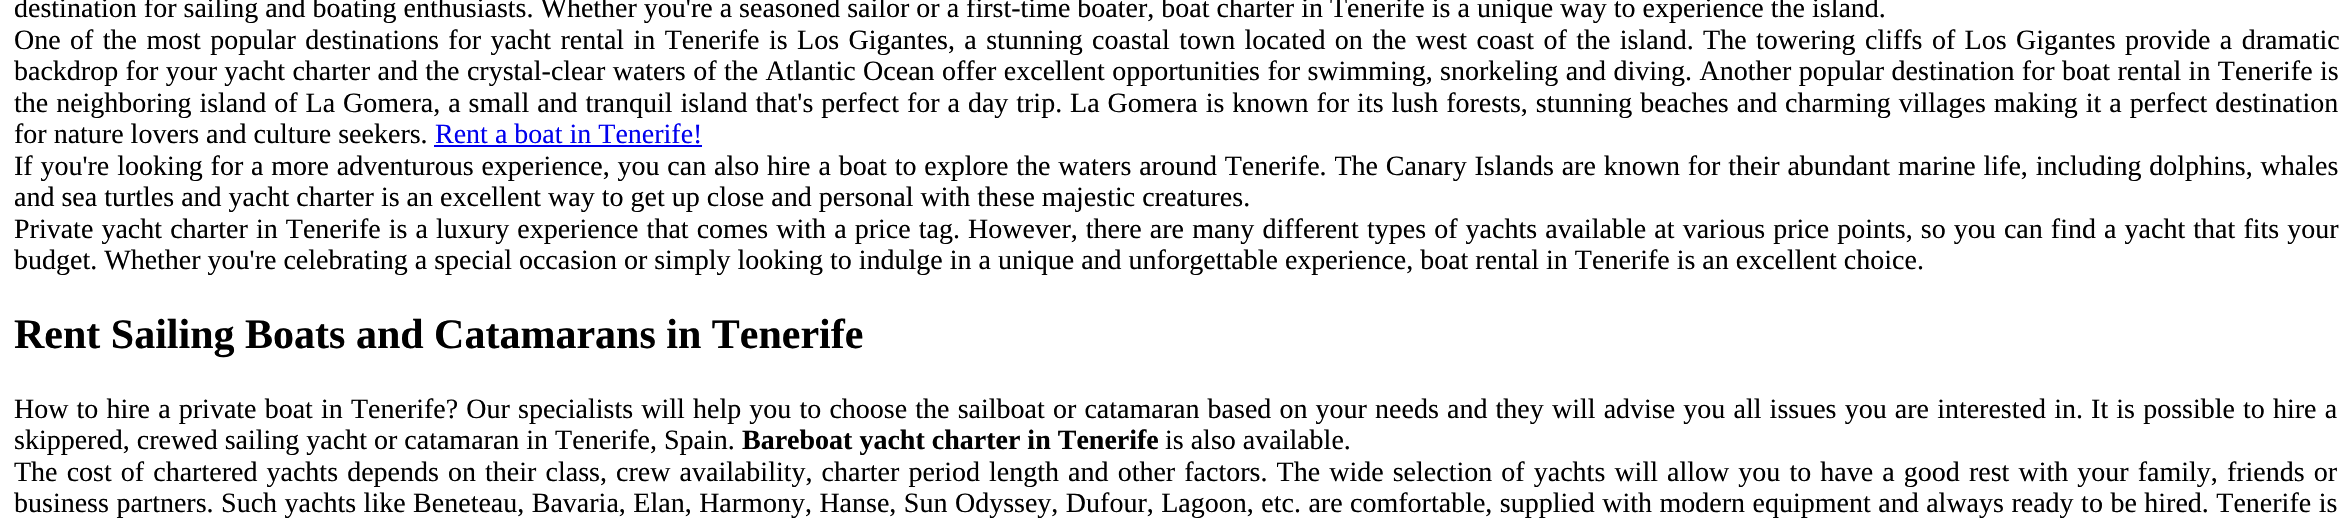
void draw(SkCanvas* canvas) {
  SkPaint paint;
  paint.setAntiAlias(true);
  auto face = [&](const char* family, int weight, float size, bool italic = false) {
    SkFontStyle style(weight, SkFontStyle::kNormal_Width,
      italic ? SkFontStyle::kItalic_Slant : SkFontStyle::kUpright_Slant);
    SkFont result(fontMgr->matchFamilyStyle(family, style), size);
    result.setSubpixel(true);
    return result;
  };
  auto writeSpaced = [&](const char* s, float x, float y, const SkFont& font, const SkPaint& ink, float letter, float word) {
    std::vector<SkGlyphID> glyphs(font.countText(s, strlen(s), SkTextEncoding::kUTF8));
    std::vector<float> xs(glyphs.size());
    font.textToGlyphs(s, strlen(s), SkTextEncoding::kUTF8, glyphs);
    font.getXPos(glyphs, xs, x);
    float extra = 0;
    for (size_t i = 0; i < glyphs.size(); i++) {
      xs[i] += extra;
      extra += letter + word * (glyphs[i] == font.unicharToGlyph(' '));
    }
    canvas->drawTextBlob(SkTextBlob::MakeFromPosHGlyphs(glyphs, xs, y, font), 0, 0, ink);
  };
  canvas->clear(0xffffffff);
  paint.setColor(0xff0000ee);
  canvas->drawRect(SkRect::MakeXYWH(434, 145, 268, 2), paint);
  auto f0 = face("Liberation Serif", 400, 28);
  paint.setColor(0xff000000);
  canvas->drawString("destination for sailing and boating enthusiasts. Whether you're a seasoned sailor or a first-time boater, boat charter in Tenerife is a unique way to experience the island.", 14, 17, f0, paint);
  writeSpaced("One of the most popular destinations for yacht rental in Tenerife is Los Gigantes, a stunning coastal town located on the west coast of the island. The towering cliffs of Los Gigantes provide a dramatic", 14, 49, f0, paint, 0, 2.4f);
  writeSpaced("backdrop for your yacht charter and the crystal-clear waters of the Atlantic Ocean offer excellent opportunities for swimming, snorkeling and diving. Another popular destination for boat rental in Tenerife is", 14, 80, f0, paint, 0, 0.4f);
  writeSpaced("the neighboring island of La Gomera, a small and tranquil island that's perfect for a day trip. La Gomera is known for its lush forests, stunning beaches and charming villages making it a perfect destination", 14, 112, f0, paint, 0, 0.95f);
  canvas->drawString("for nature lovers and culture seekers.", 14, 143, f0, paint);
  paint.setColor(0xff0000ee);
  canvas->drawString("Rent a boat in Tenerife!", 435, 143, f0, paint);
  paint.setColor(0xff000000);
  writeSpaced("If you're looking for a more adventurous experience, you can also hire a boat to explore the waters around Tenerife. The Canary Islands are known for their abundant marine life, including dolphins, whales", 14, 175, f0, paint, 0, 0.85f);
  canvas->drawString("and sea turtles and yacht charter is an excellent way to get up close and personal with these majestic creatures.", 14, 206, f0, paint);
  writeSpaced("Private yacht charter in Tenerife is a luxury experience that comes with a price tag. However, there are many different types of yachts available at various price points, so you can find a yacht that fits your", 14, 238, f0, paint, 0, 1.1f);
  canvas->drawString("budget. Whether you're celebrating a special occasion or simply looking to indulge in a unique and unforgettable experience, boat rental in Tenerife is an excellent choice.", 14, 269, f0, paint);
  auto f1 = face("Liberation Serif", 700, 42);
  canvas->drawString("Rent Sailing Boats and Catamarans in Tenerife", 14, 348, f1, paint);
  writeSpaced("How to hire a private boat in Tenerife? Our specialists will help you to choose the sailboat or catamaran based on your needs and they will advise you all issues you are interested in. It is possible to hire a", 14, 418, f0, paint, 0, 1.15f);
  canvas->drawString("skippered, crewed sailing yacht or catamaran in Tenerife, Spain.", 14, 449, f0, paint);
  auto f2 = face("Liberation Serif", 700, 28);
  canvas->drawString("Bareboat yacht charter in Tenerife", 742, 449, f2, paint);
  canvas->drawString("is also available.", 1165, 449, f0, paint);
  writeSpaced("The cost of chartered yachts depends on their class, crew availability, charter period length and other factors. The wide selection of yachts will allow you to have a good rest with your family, friends or", 14, 481, f0, paint, 0, 2.1f);
  writeSpaced("business partners. Such yachts like Beneteau, Bavaria, Elan, Harmony, Hanse, Sun Odyssey, Dufour, Lagoon, etc. are comfortable, supplied with modern equipment and always ready to be hired. Tenerife is", 14, 512, f0, paint, 0, 0.5f);
}
